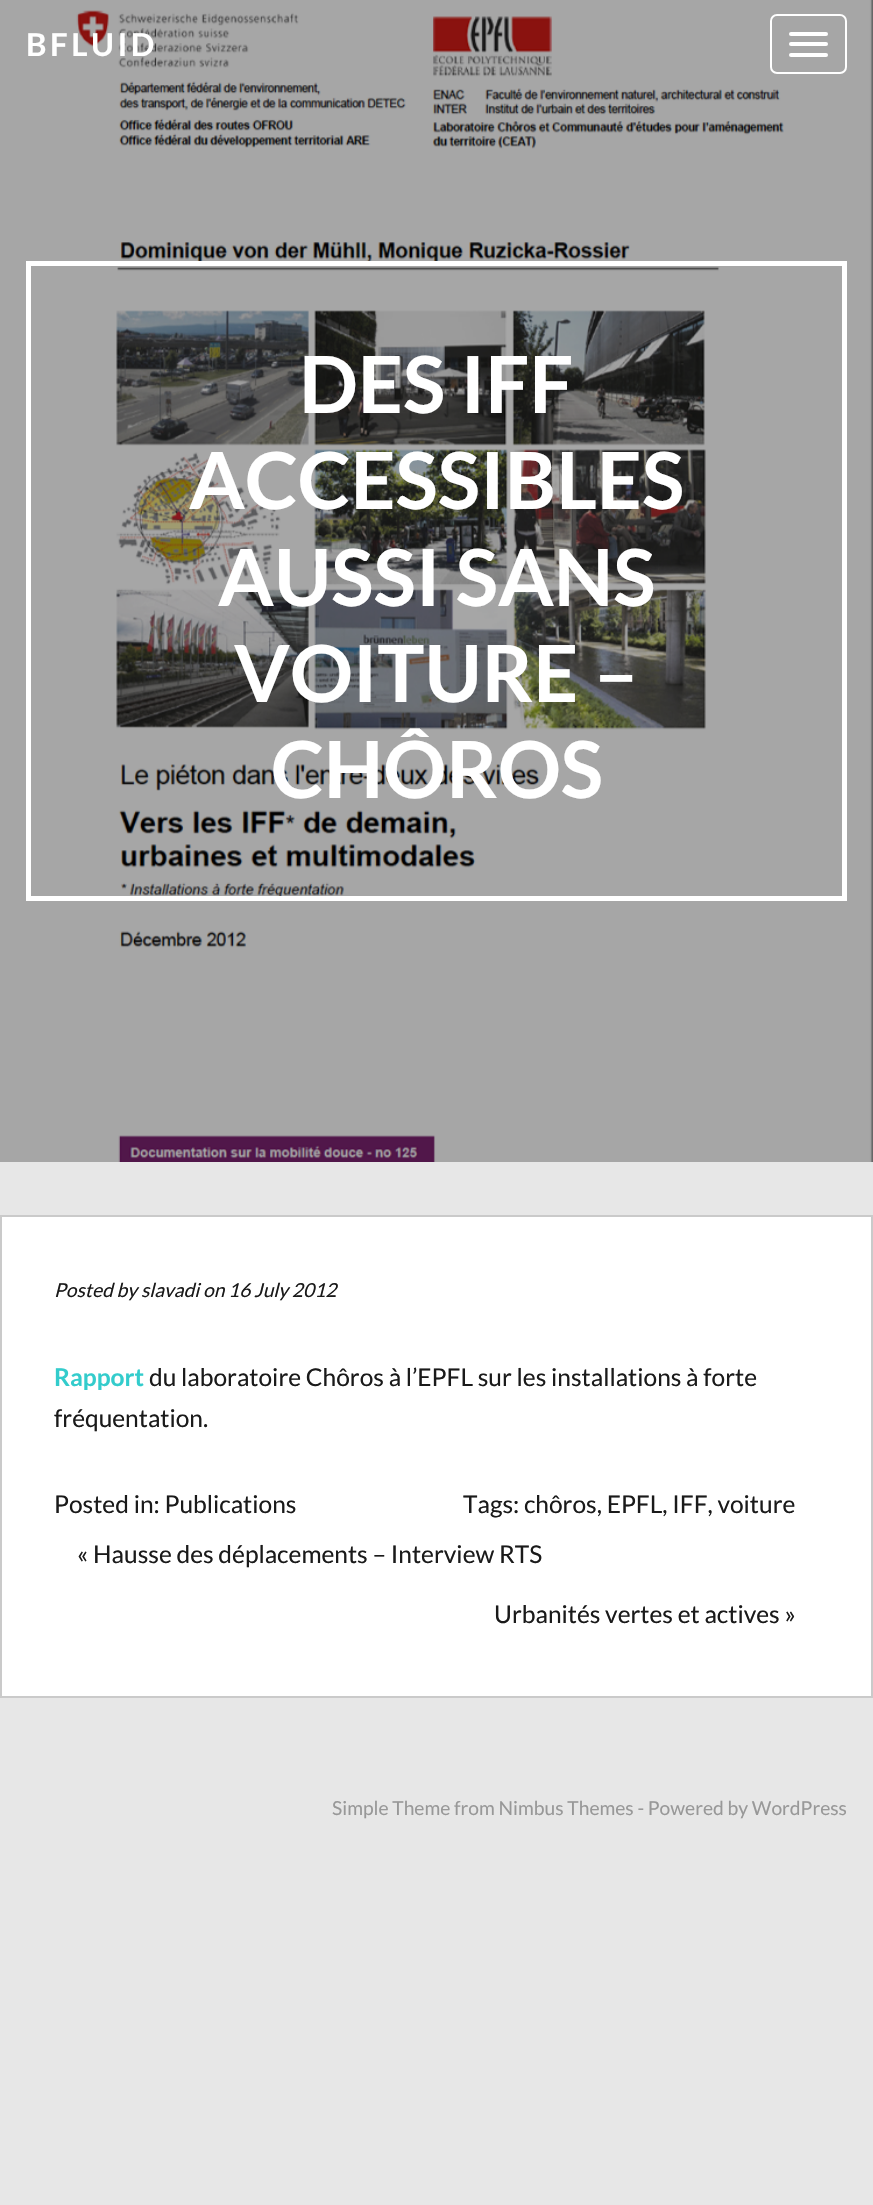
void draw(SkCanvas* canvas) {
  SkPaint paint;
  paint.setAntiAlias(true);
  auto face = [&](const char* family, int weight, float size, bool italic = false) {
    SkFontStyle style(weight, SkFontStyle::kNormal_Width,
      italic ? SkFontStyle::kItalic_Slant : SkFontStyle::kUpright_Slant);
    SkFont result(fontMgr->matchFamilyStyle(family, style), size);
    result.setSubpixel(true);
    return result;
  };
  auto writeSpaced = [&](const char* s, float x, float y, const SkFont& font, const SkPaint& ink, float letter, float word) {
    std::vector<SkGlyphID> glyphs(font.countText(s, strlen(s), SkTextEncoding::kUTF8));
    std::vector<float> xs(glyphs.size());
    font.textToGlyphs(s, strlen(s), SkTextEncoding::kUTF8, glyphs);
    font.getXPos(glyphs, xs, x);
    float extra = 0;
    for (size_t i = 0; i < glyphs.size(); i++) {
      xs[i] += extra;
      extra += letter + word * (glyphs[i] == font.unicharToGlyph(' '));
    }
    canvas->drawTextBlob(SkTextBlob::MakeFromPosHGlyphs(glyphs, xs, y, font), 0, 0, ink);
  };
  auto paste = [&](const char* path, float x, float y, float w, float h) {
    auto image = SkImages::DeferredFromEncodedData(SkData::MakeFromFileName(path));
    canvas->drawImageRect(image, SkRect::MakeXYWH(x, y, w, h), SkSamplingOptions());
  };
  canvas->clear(0xffe7e7e7);
  paste("img/1.png", 0, 0, 873, 1162);
  paint.setStroke(true);
  paint.setStrokeWidth(2);
  paint.setColor(0xffffffff);
  canvas->drawRoundRect(SkRect::MakeXYWH(771, 15, 75, 58), 6, 6, paint);
  paint.setStroke(false);
  canvas->drawRoundRect(SkRect::MakeXYWH(789, 32, 39, 4), 2, 2, paint);
  canvas->drawRoundRect(SkRect::MakeXYWH(789, 42, 39, 4), 2, 2, paint);
  canvas->drawRoundRect(SkRect::MakeXYWH(789, 53, 39, 4), 2, 2, paint);
  paint.setStroke(true);
  paint.setStrokeWidth(5);
  canvas->drawRect(SkRect::MakeXYWH(28.5f, 263.5f, 816, 635), paint);
  paint.setStroke(false);
  canvas->drawRect(SkRect::MakeXYWH(1, 1216, 871, 481), paint);
  paint.setStroke(true);
  paint.setStrokeWidth(2);
  paint.setColor(0xffcacaca);
  canvas->drawRect(SkRect::MakeXYWH(1, 1216, 871, 481), paint);
  auto f0 = face("Lato", 700, 31.5f);
  paint.setStroke(false);
  paint.setColor(0xffffffff);
  writeSpaced("BFLUID", 26, 56, f0, paint, 3.5f, 0);
  auto f1 = face("Lato", 700, 78.75f);
  {
    const struct { const char* s; float x, y; } items[] = {
      {"DES IFF", 299, 413},
      {"ACCESSIBLES", 189, 509},
      {"AUSSI SANS", 218, 606},
      {"VOITURE –", 234, 702},
      {"CHÔROS", 271, 798},
    };
    for (auto [s, x, y] : items) {
      canvas->drawString(s, x, y, f1, paint);
    }
  }
  auto f2 = face("Lato", 400, 19.25f, true);
  paint.setColor(0xff1a1a1a);
  canvas->drawString("Posted by slavadi on 16 July 2012", 54, 1297, f2, paint);
  auto f3 = face("Lato", 700, 24.5f);
  paint.setColor(0xff33cccc);
  canvas->drawString("Rapport", 54, 1386, f3, paint);
  auto f4 = face("Lato", 400, 24.5f);
  paint.setColor(0xff1a1a1a);
  {
    const struct { const char* s; float x, y; } items[] = {
      {"du laboratoire Chôros à l’EPFL sur les installations à forte", 149, 1386},
      {"fréquentation.", 54, 1427},
      {"Posted in: Publications", 54, 1513},
      {"Tags: chôros, EPFL, IFF, voiture", 463, 1513},
      {"« Hausse des déplacements – Interview RTS", 77, 1563},
      {"Urbanités vertes et actives »", 494, 1623},
    };
    for (auto [s, x, y] : items) {
      canvas->drawString(s, x, y, f4, paint);
    }
  }
  auto f5 = face("Lato", 400, 19.25f);
  paint.setColor(0xff989898);
  canvas->drawString("Simple Theme from Nimbus Themes - Powered by WordPress", 332, 1815, f5, paint);
}
